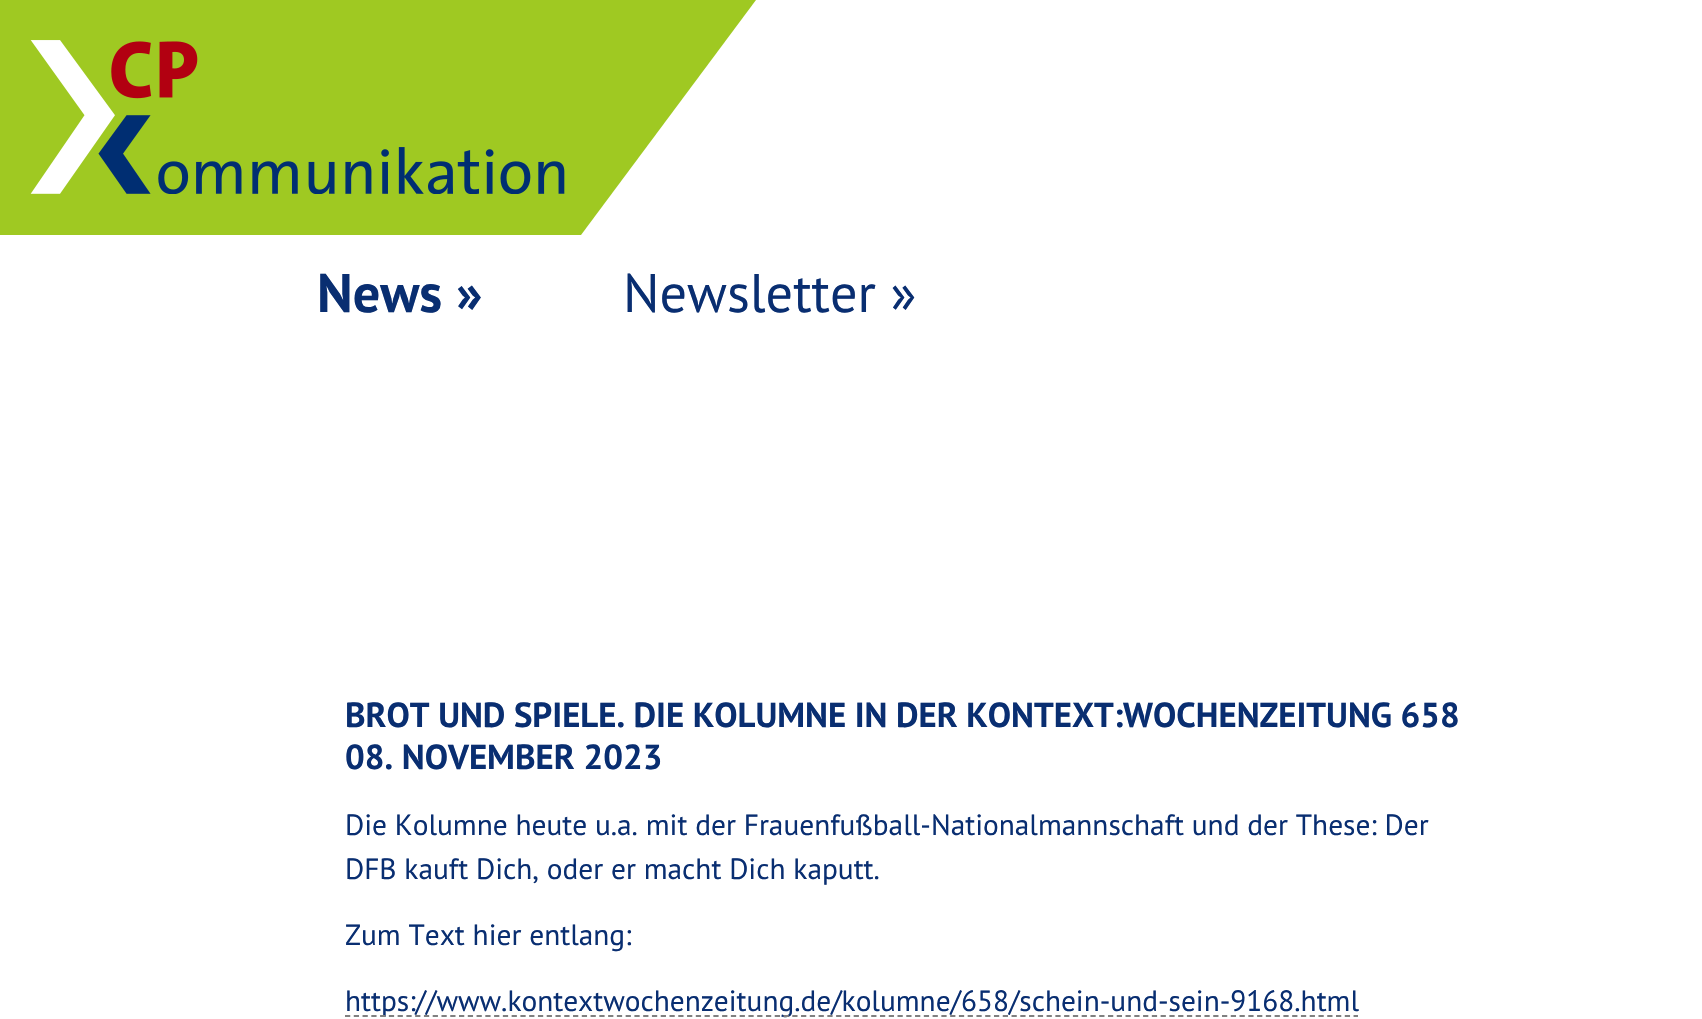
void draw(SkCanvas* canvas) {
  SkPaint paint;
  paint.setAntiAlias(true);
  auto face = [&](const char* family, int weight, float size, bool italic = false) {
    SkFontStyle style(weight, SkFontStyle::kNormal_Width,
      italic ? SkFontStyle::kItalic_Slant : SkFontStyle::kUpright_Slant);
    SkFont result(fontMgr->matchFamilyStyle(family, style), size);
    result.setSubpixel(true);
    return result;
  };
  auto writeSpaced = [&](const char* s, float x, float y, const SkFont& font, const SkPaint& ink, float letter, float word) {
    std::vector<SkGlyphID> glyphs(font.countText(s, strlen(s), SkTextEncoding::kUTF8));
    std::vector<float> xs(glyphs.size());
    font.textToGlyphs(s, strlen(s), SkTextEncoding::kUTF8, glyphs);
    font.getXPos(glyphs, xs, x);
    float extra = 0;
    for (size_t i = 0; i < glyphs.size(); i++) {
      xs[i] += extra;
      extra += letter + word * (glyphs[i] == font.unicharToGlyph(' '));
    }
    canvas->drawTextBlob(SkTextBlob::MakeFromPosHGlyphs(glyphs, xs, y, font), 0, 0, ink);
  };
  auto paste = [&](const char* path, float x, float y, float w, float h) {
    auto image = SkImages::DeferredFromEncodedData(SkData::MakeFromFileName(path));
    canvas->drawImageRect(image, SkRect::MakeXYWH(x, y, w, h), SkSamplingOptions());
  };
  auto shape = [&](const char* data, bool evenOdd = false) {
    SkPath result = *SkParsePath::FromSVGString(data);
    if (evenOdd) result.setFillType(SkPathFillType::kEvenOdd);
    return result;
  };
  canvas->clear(0xffffffff);
  paint.setColor(0xff9fc922);
  canvas->drawPath(shape("M-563 0V235H581L756 0Z"), paint);
  paste("img/1.png", 30, 40, 535, 154);
  auto f0 = face("PT Sans", 700, 54.25f);
  paint.setColor(0xff092e71);
  canvas->drawString("News »", 317, 312, f0, paint);
  auto f1 = face("PT Sans", 400, 54.25f);
  canvas->drawString("Newsletter »", 623, 312, f1, paint);
  auto f2 = face("PT Sans", 700, 34.8f);
  writeSpaced("BROT UND SPIELE. DIE KOLUMNE IN DER KONTEXT:WOCHENZEITUNG 658", 345, 727, f2, paint, 0, -0.25f);
  canvas->drawString("08. NOVEMBER 2023", 345, 769, f2, paint);
  auto f3 = face("PT Sans", 400, 29.35f);
  {
    const struct { const char* s; float x, y; } items[] = {
      {"Die Kolumne heute u.a. mit der Frauenfußball-Nationalmannschaft und der These: Der", 345, 835},
      {"DFB kauft Dich, oder er macht Dich kaputt.", 345, 879},
      {"Zum Text hier entlang:", 345, 945},
      {"https://www.kontextwochenzeitung.de/kolumne/658/schein-und-sein-9168.html", 345, 1011},
    };
    for (auto [s, x, y] : items) {
      canvas->drawString(s, x, y, f3, paint);
    }
  }
  paint.setStroke(true);
  paint.setStrokeWidth(1.8f);
  paint.setColor(0xff808080);
  paint.setPathEffect(SkDashPathEffect::Make({{5.25f, 3.52f}}, 0));
  canvas->drawPath(shape("M345 1016H1358"), paint);
  paint.setPathEffect(nullptr);
}
